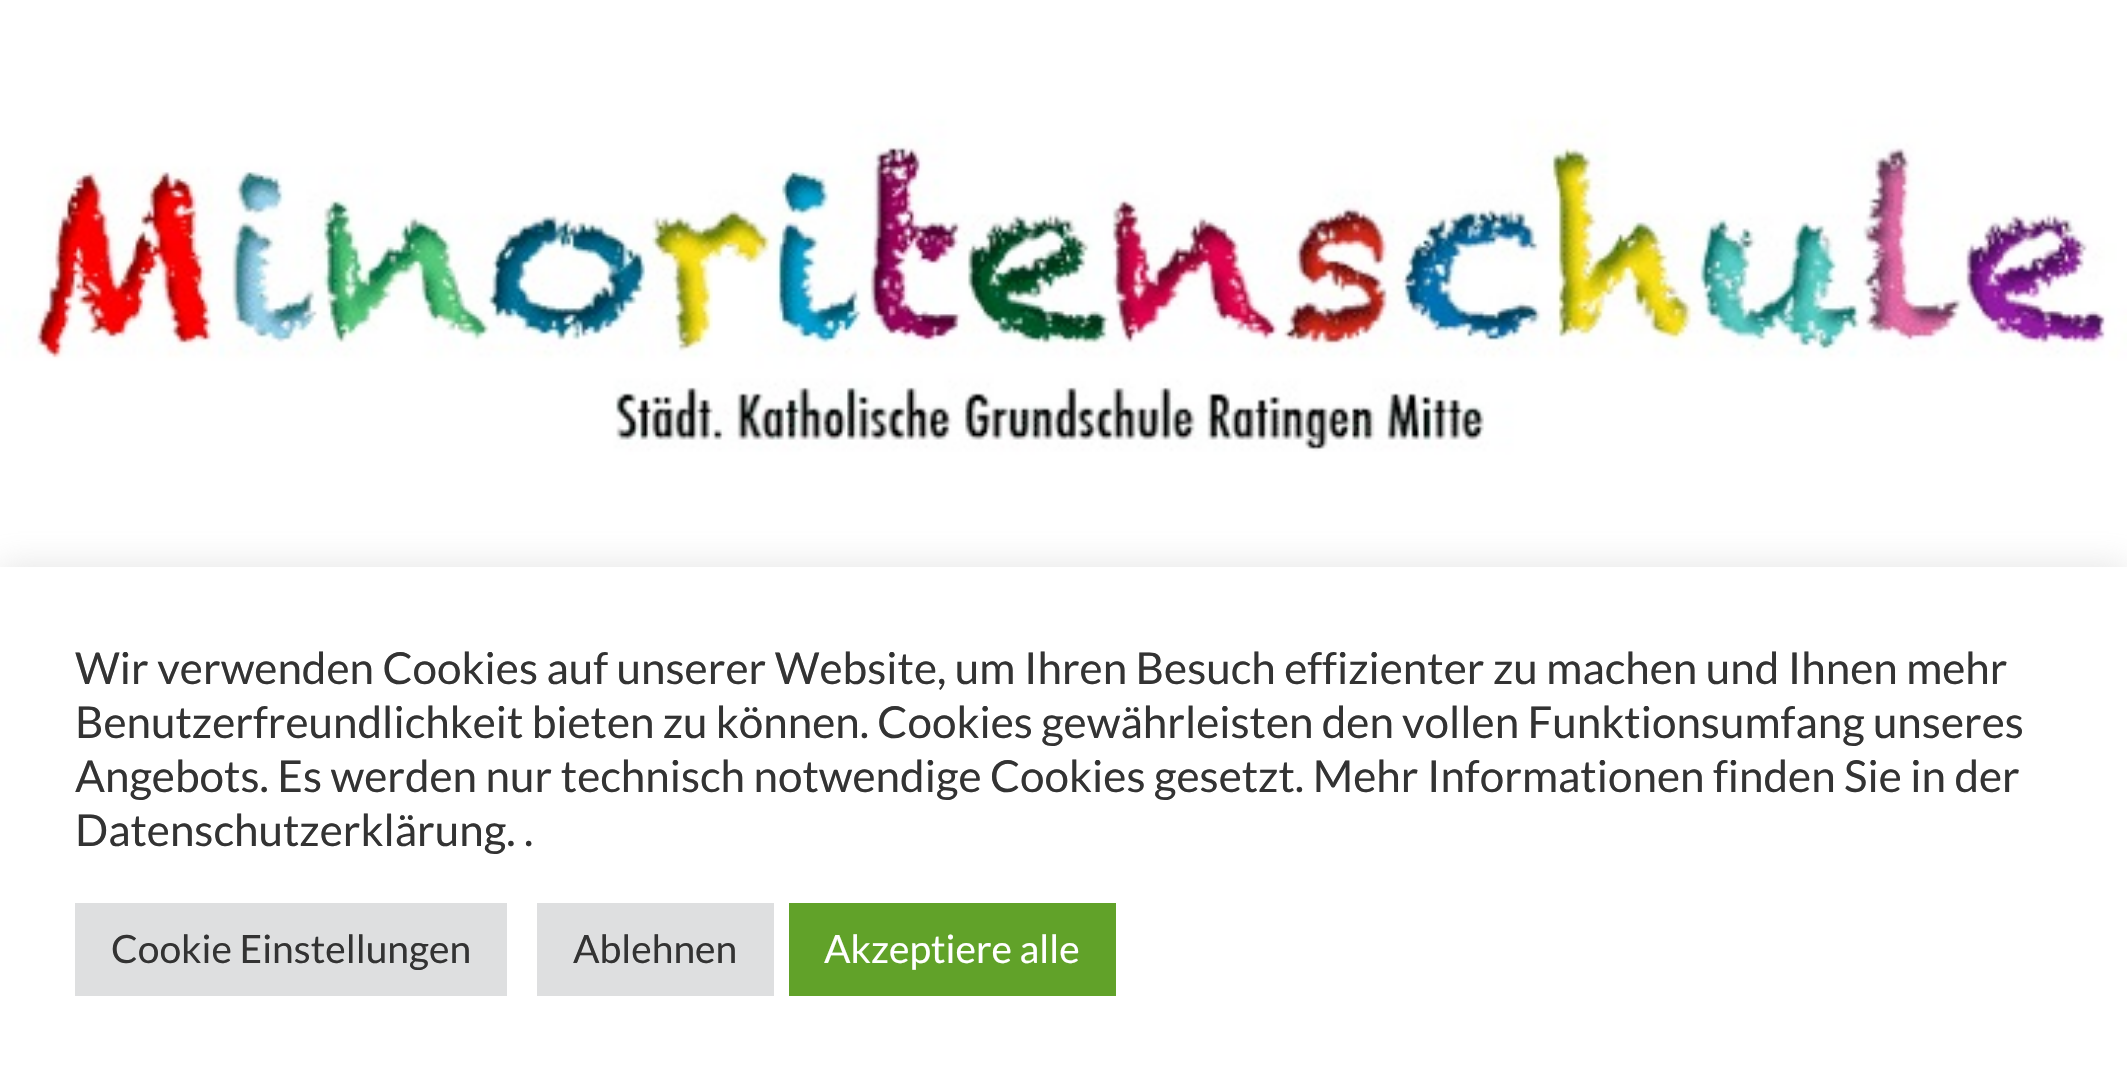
void draw(SkCanvas* canvas) {
  SkPaint paint;
  paint.setAntiAlias(true);
  auto face = [&](const char* family, int weight, float size, bool italic = false) {
    SkFontStyle style(weight, SkFontStyle::kNormal_Width,
      italic ? SkFontStyle::kItalic_Slant : SkFontStyle::kUpright_Slant);
    SkFont result(fontMgr->matchFamilyStyle(family, style), size);
    result.setSubpixel(true);
    return result;
  };
  auto writeSpaced = [&](const char* s, float x, float y, const SkFont& font, const SkPaint& ink, float letter, float word) {
    std::vector<SkGlyphID> glyphs(font.countText(s, strlen(s), SkTextEncoding::kUTF8));
    std::vector<float> xs(glyphs.size());
    font.textToGlyphs(s, strlen(s), SkTextEncoding::kUTF8, glyphs);
    font.getXPos(glyphs, xs, x);
    float extra = 0;
    for (size_t i = 0; i < glyphs.size(); i++) {
      xs[i] += extra;
      extra += letter + word * (glyphs[i] == font.unicharToGlyph(' '));
    }
    canvas->drawTextBlob(SkTextBlob::MakeFromPosHGlyphs(glyphs, xs, y, font), 0, 0, ink);
  };
  auto paste = [&](const char* path, float x, float y, float w, float h) {
    auto image = SkImages::DeferredFromEncodedData(SkData::MakeFromFileName(path));
    canvas->drawImageRect(image, SkRect::MakeXYWH(x, y, w, h), SkSamplingOptions());
  };
  canvas->clear(0xffffffff);
  paste("img/1.png", 0, 0, 2127, 567);
  paint.setColor(0x4dacabab);
  paint.setMaskFilter(SkMaskFilter::MakeBlur(kNormal_SkBlurStyle, 15));
  canvas->drawRect(SkRect::MakeXYWH(0, 564, 2127, 519), paint);
  paint.setMaskFilter(nullptr);
  {
    const struct { float x, y, w, h; SkColor color; } items[] = {
      {0, 567, 2127, 517, 0xffffffff},
      {75, 903, 432, 93, 0xffdedfe0},
      {537, 903, 237, 93, 0xffdedfe0},
      {789, 903, 327, 93, 0xff61a229},
    };
    for (auto [x, y, w, h, color] : items) {
      paint.setColor(color);
      canvas->drawRect(SkRect::MakeXYWH(x, y, w, h), paint);
    }
  }
  auto f0 = face("Lato", 400, 44);
  paint.setColor(0xff333333);
  canvas->drawString("Wir verwenden Cookies auf unserer Website, um Ihren Besuch effizienter zu machen und Ihnen mehr", 75, 684, f0, paint);
  writeSpaced("Benutzerfreundlichkeit bieten zu können. Cookies gewährleisten den vollen Funktionsumfang unseres", 75, 738, f0, paint, 0, -0.25f);
  canvas->drawString("Angebots. Es werden nur technisch notwendige Cookies gesetzt. Mehr Informationen finden Sie in der", 75, 792, f0, paint);
  canvas->drawString("Datenschutzerklärung. .", 75, 846, f0, paint);
  auto f1 = face("Lato", 400, 39);
  canvas->drawString("Cookie Einstellungen", 111, 963, f1, paint);
  canvas->drawString("Ablehnen", 573, 963, f1, paint);
  paint.setColor(0xffffffff);
  canvas->drawString("Akzeptiere alle", 824, 963, f1, paint);
}
